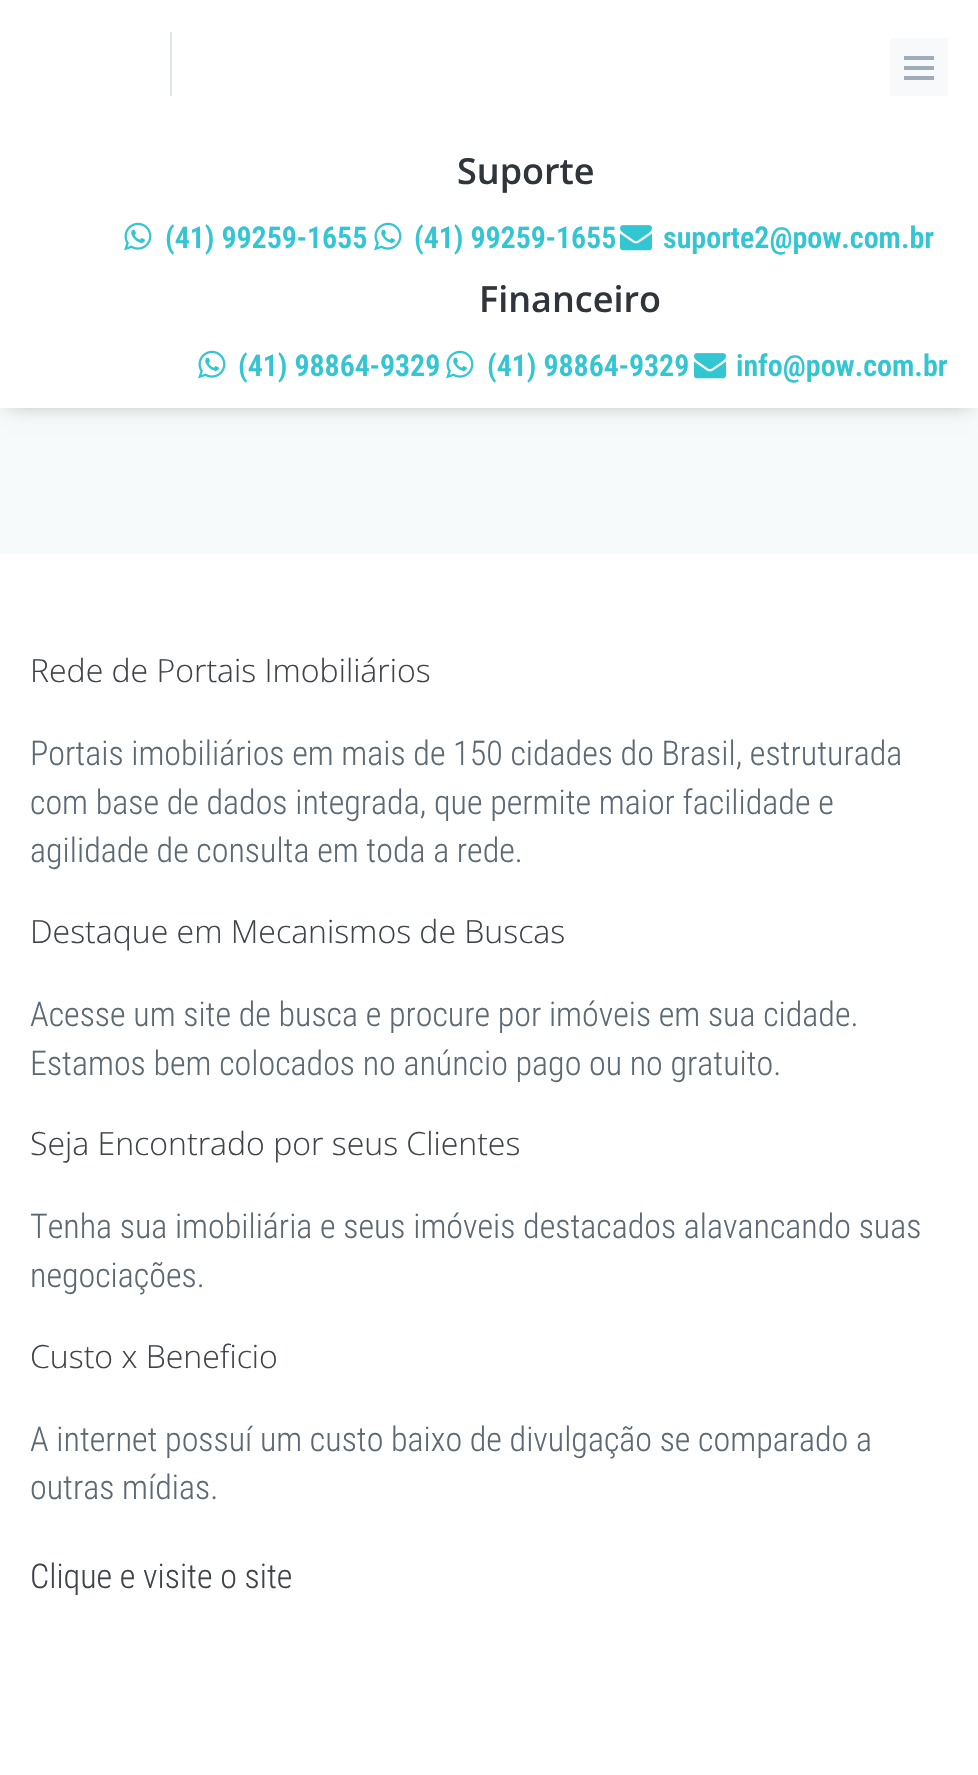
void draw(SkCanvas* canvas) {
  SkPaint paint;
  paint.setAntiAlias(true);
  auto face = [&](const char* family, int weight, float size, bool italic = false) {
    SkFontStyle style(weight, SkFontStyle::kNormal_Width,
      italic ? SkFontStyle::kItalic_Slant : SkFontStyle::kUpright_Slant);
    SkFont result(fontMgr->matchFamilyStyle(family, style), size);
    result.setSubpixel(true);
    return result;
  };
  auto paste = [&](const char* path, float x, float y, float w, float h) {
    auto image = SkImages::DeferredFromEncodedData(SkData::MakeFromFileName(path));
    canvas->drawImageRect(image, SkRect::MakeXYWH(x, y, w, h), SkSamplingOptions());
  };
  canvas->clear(0xffffffff);
  paint.setColor(0xfff7fafb);
  canvas->drawRect(SkRect::MakeXYWH(0, 408, 978, 146), paint);
  paint.setColor(0x40000000);
  paint.setMaskFilter(SkMaskFilter::MakeBlur(kNormal_SkBlurStyle, 9));
  canvas->drawRect(SkRect::MakeXYWH(8, 14, 962, 392), paint);
  paint.setMaskFilter(nullptr);
  {
    const struct { float x, y, w, h; SkColor color; } items[] = {
      {0, 0, 978, 408, 0xffffffff},
      {170, 32, 2, 64, 0xffdfe4e8},
      {890, 38, 58, 58, 0xfff8f9fa},
      {904, 56, 30, 4, 0xff9facba},
      {904, 66, 30, 4, 0xff9facba},
      {904, 76, 30, 4, 0xff9facba},
    };
    for (auto [x, y, w, h, color] : items) {
      paint.setColor(color);
      canvas->drawRect(SkRect::MakeXYWH(x, y, w, h), paint);
    }
  }
  paste("img/1.png", 124, 222, 28, 29);
  paste("img/1.png", 374, 222, 28, 29);
  paste("img/2.png", 620, 225, 32, 26);
  paste("img/1.png", 198, 350, 28, 29);
  paste("img/1.png", 446, 350, 28, 29);
  paste("img/2.png", 694, 353, 32, 26);
  auto f0 = face("Open Sans", 600, 36);
  paint.setColor(0xff2f353b);
  canvas->drawString("Suporte", 457, 184, f0, paint);
  auto f1 = face("Roboto Condensed", 600, 30);
  paint.setColor(0xff32c5d2);
  {
    const struct { const char* s; float x, y; } items[] = {
      {"(41) 99259-1655", 165, 248},
      {"(41) 99259-1655", 414, 248},
      {"suporte2@pow.com.br", 663, 248},
    };
    for (auto [s, x, y] : items) {
      canvas->drawString(s, x, y, f1, paint);
    }
  }
  paint.setColor(0xff2f353b);
  canvas->drawString("Financeiro", 479, 312, f0, paint);
  paint.setColor(0xff32c5d2);
  {
    const struct { const char* s; float x, y; } items[] = {
      {"(41) 98864-9329", 238, 376},
      {"(41) 98864-9329", 487, 376},
      {"info@pow.com.br", 736, 376},
    };
    for (auto [s, x, y] : items) {
      canvas->drawString(s, x, y, f1, paint);
    }
  }
  auto f2 = face("Open Sans", 300, 32);
  paint.setColor(0xff3f444a);
  canvas->drawString("Rede de Portais Imobiliários", 30, 682, f2, paint);
  auto f3 = face("Roboto Condensed", 300, 34);
  paint.setColor(0xff5c6873);
  {
    const struct { const char* s; float x, y; } items[] = {
      {"Portais imobiliários em mais de 150 cidades do Brasil, estruturada", 30, 765},
      {"com base de dados integrada, que permite maior facilidade e", 30, 814},
      {"agilidade de consulta em toda a rede.", 30, 862},
    };
    for (auto [s, x, y] : items) {
      canvas->drawString(s, x, y, f3, paint);
    }
  }
  paint.setColor(0xff3f444a);
  canvas->drawString("Destaque em Mecanismos de Buscas", 30, 943, f2, paint);
  paint.setColor(0xff5c6873);
  canvas->drawString("Acesse um site de busca e procure por imóveis em sua cidade.", 30, 1026, f3, paint);
  canvas->drawString("Estamos bem colocados no anúncio pago ou no gratuito.", 30, 1075, f3, paint);
  paint.setColor(0xff3f444a);
  canvas->drawString("Seja Encontrado por seus Clientes", 30, 1155, f2, paint);
  paint.setColor(0xff5c6873);
  canvas->drawString("Tenha sua imobiliária e seus imóveis destacados alavancando suas", 30, 1238, f3, paint);
  canvas->drawString("negociações.", 30, 1287, f3, paint);
  paint.setColor(0xff3f444a);
  canvas->drawString("Custo x Beneficio", 30, 1368, f2, paint);
  paint.setColor(0xff5c6873);
  canvas->drawString("A internet possuí um custo baixo de divulgação se comparado a", 30, 1451, f3, paint);
  canvas->drawString("outras mídias.", 30, 1499, f3, paint);
  paint.setColor(0xff3f444a);
  canvas->drawString("Clique e visite o site", 30, 1588, f3, paint);
}
